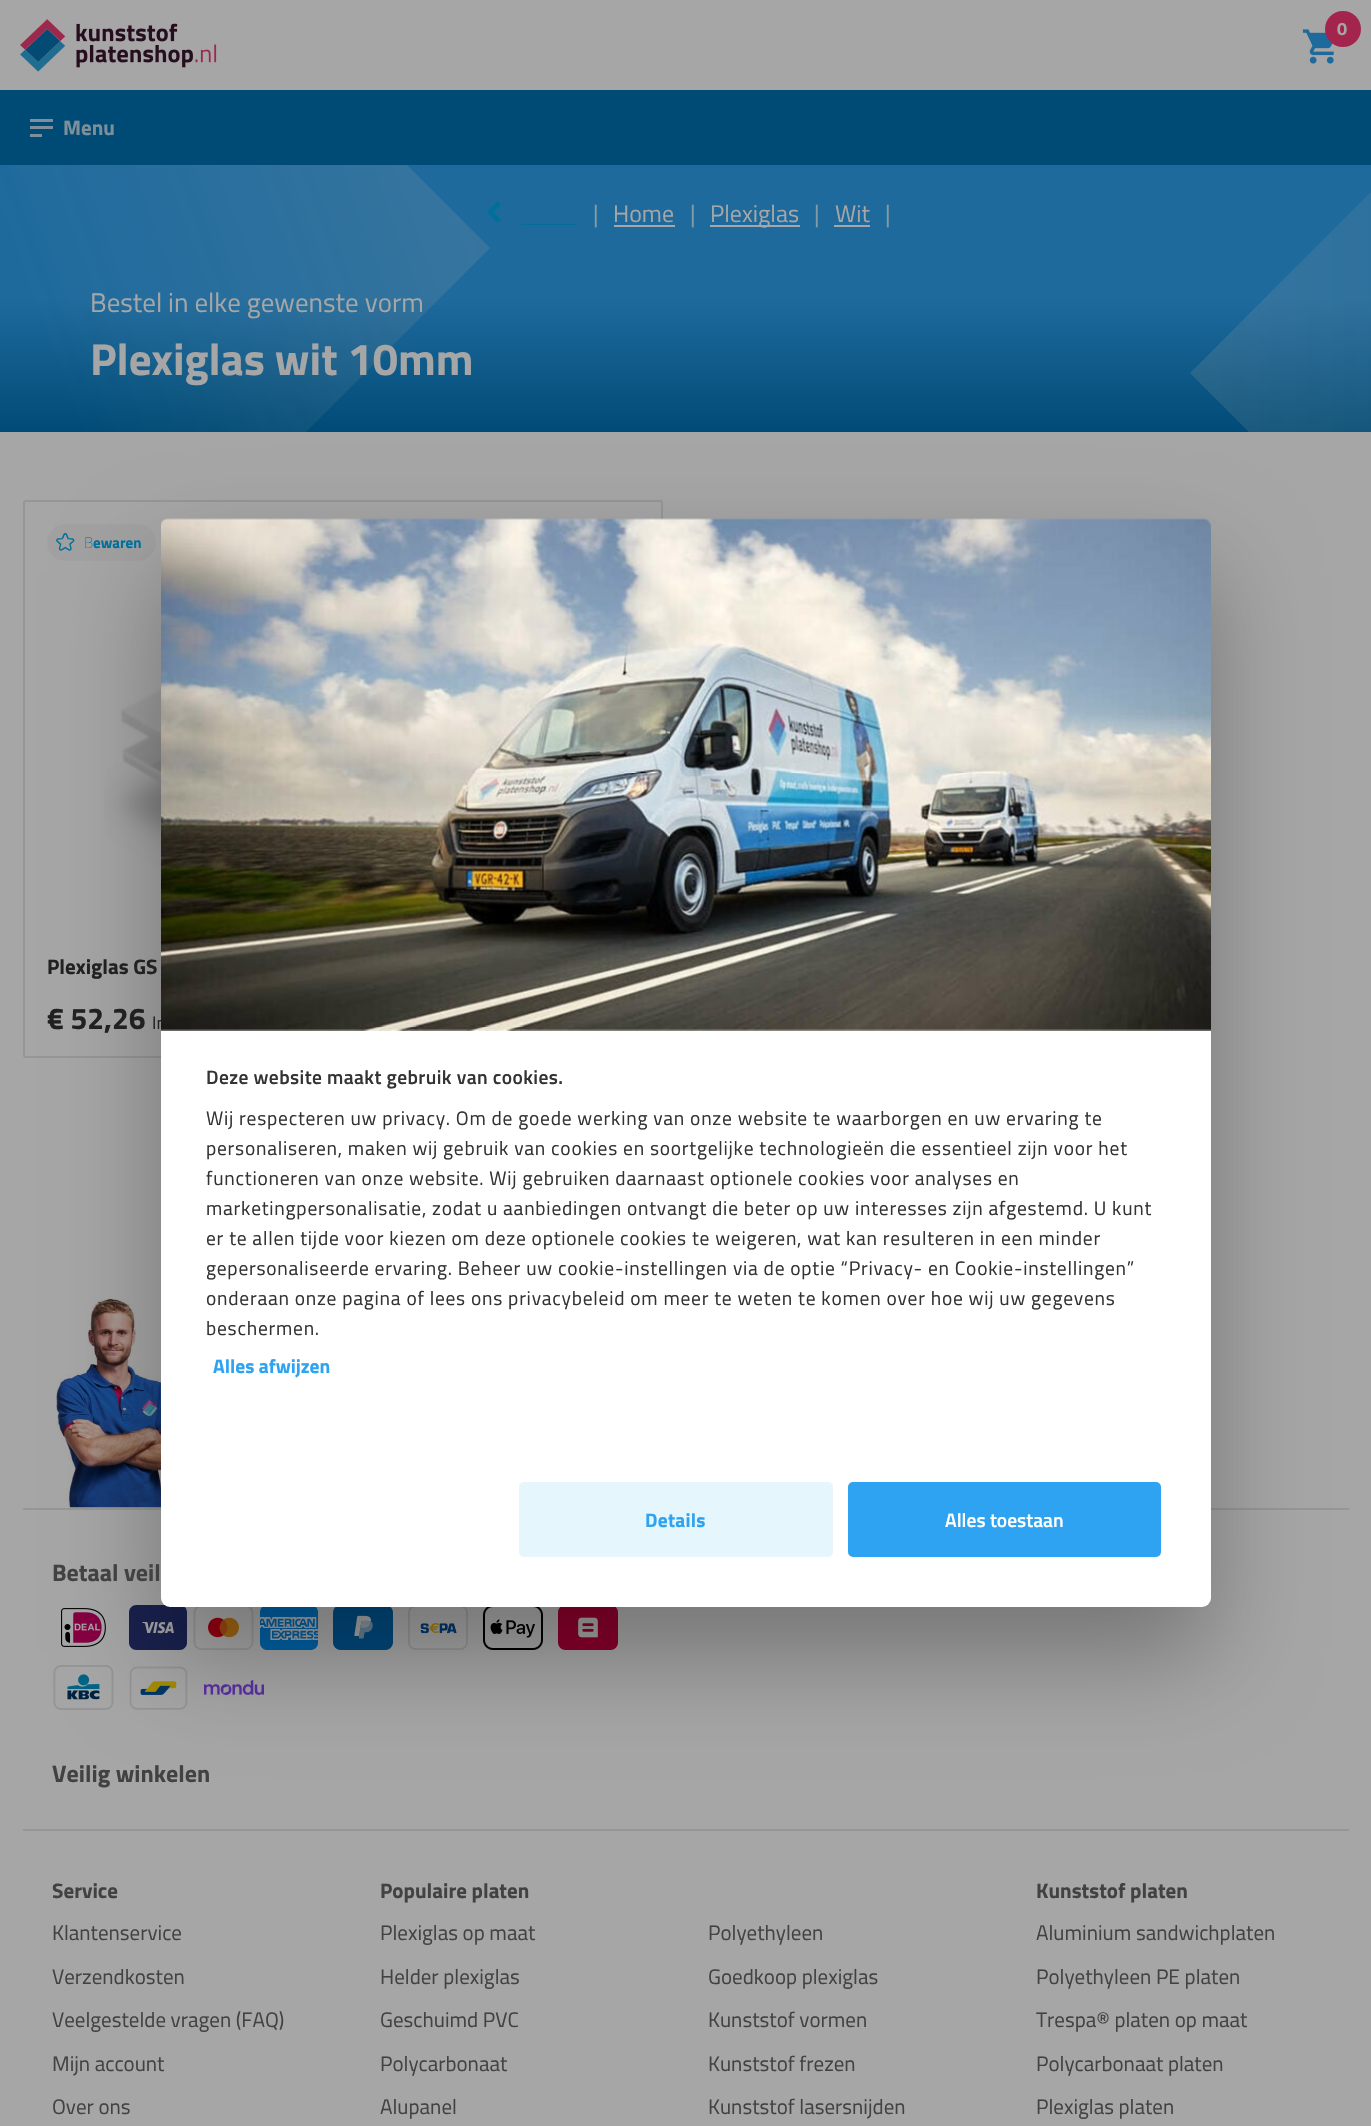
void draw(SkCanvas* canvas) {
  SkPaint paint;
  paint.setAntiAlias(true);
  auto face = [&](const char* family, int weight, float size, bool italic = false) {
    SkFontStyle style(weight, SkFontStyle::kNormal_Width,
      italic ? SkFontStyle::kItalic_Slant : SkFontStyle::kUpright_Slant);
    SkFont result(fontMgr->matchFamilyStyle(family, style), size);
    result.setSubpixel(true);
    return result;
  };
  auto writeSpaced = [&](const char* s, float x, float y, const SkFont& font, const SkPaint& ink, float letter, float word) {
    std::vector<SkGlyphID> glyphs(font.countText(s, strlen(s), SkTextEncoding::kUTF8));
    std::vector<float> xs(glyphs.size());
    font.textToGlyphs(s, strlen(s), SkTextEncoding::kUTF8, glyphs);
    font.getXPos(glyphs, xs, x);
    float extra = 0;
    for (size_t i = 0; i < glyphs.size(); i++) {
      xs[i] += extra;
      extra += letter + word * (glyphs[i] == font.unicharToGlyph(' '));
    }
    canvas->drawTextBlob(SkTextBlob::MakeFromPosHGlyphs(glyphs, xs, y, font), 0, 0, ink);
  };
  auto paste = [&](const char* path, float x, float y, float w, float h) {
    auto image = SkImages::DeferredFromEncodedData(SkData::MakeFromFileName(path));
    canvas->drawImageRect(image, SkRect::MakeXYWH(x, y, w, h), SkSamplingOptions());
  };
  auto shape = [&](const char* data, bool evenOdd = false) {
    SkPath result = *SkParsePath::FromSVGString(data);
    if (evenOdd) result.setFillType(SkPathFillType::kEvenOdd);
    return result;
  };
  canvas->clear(0xffa6a6a6);
  paste("img/1.png", 20, 19, 197, 53);
  paste("img/2.png", 1302, 29, 32, 35);
  paint.setColor(0xffa3244c);
  canvas->drawCircle(1343, 29, 18, paint);
  {
    const struct { float x, y, w, h; SkColor color; } items[] = {
      {0, 90, 1371, 75, 0xff004b76},
      {30, 119, 23, 3, 0xff7c8f9a},
      {30, 126, 23, 3, 0xff7c8f9a},
      {30, 134, 12, 3, 0xff7c8f9a},
    };
    for (auto [x, y, w, h, color] : items) {
      paint.setColor(color);
      canvas->drawRect(SkRect::MakeXYWH(x, y, w, h), paint);
    }
  }
  {
    const SkColor colors[] = {0xff1e6a9d, 0xff1e6a9d, 0xff004b76};
    const float stops[] = {0, 0.5f, 1};
    const SkPoint ends[] = {{686, 165}, {686, 432}};
    paint.setShader(SkGradientShader::MakeLinear(ends, colors, stops, 3, SkTileMode::kClamp));
    paint.setAlpha(255);
  }
  canvas->drawRect(SkRect::MakeXYWH(0, 165, 1371, 267), paint);
  canvas->save();
  canvas->clipRect(SkRect::MakeXYWH(0, 165, 1371, 267));
  {
    const SkColor colors[] = {0x2ea6a6a6, 0x00a6a6a6, 0x00a6a6a6};
    const float stops[] = {0, 0.3f, 1};
    const SkPoint ends[] = {{408, 20}, {-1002, 533}};
    paint.setShader(SkGradientShader::MakeLinear(ends, colors, stops, 3, SkTileMode::kClamp));
    paint.setAlpha(255);
  }
  canvas->drawPath(shape("M490 248L-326 1064L-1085 306L-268-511Z"), paint);
  {
    const SkColor colors[] = {0x2ea6a6a6, 0x00a6a6a6, 0x00a6a6a6};
    const float stops[] = {0, 0.3f, 1};
    const SkPoint ends[] = {{1190, 186}, {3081, 186}};
    paint.setShader(SkGradientShader::MakeLinear(ends, colors, stops, 3, SkTileMode::kClamp));
    paint.setAlpha(255);
  }
  canvas->drawPath(shape("M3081-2L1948 1131L1190 373L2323-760Z"), paint);
  canvas->restore();
  paste("img/3.png", 487, 201, 14, 22);
  canvas->save();
  canvas->clipPath(shape("M485 201H575C576.5 201 578 202.5 578 204V222C578 223.5 576.5 225 575 225H485C483.5 225 482 223.5 482 222V204C482 202.5 483.5 201 485 201Z"), true);
  paint.setShader(nullptr);
  paint.setColor(0xff006f9b);
  canvas->drawRect(SkRect::MakeXYWH(521, 224, 57, 1), paint);
  canvas->restore();
  {
    const struct { float x, y, w, h; SkColor color; } items[] = {
      {614, 225, 61, 2, 0xffa6a6a6},
      {710, 225, 90, 2, 0xffa6a6a6},
      {834, 225, 36, 2, 0xffa6a6a6},
    };
    for (auto [x, y, w, h, color] : items) {
      paint.setColor(color);
      canvas->drawRect(SkRect::MakeXYWH(x, y, w, h), paint);
    }
  }
  paint.setStroke(true);
  paint.setStrokeWidth(2);
  paint.setColor(0xff969696);
  canvas->drawRoundRect(SkRect::MakeXYWH(24, 501, 638, 556), 2, 2, paint);
  paint.setStroke(false);
  paint.setColor(0xffa1a1a1);
  canvas->drawRoundRect(SkRect::MakeXYWH(47, 524, 109, 37), 18.5f, 18.5f, paint);
  paste("img/4.png", 56, 533, 19, 18);
  paste("img/5.png", 104, 634, 57, 270);
  paint.setColor(0xff969696);
  canvas->drawRect(SkRect::MakeXYWH(23, 1829, 1326, 2), paint);
  canvas->drawRect(SkRect::MakeXYWH(23, 1508, 1326, 2), paint);
  paste("img/6.png", 56, 1297, 105, 211);
  paste("img/7.png", 61, 1608, 45, 39);
  paste("img/8.png", 129, 1605, 189, 45);
  paste("img/9.png", 333, 1607, 60, 43);
  paste("img/10.png", 408, 1607, 60, 43);
  paste("img/11.png", 483, 1607, 60, 43);
  paste("img/12.png", 558, 1607, 60, 43);
  paste("img/13.png", 53, 1665, 61, 45);
  paste("img/14.png", 129, 1666, 59, 44);
  paste("img/15.png", 204, 1680, 60, 15);
  paint.setColor(0x4d000000);
  paint.setMaskFilter(SkMaskFilter::MakeBlur(kNormal_SkBlurStyle, 51));
  canvas->drawRoundRect(SkRect::MakeXYWH(161, 569, 1050, 1086), 12, 12, paint);
  paint.setMaskFilter(nullptr);
  auto f0 = face("Titillium Web", 700, 18);
  paint.setColor(0xffa6a6a6);
  canvas->drawString("0", 1337, 35, f0, paint);
  auto f1 = face("Titillium Web", 700, 21);
  paint.setColor(0xff7c8f9a);
  canvas->drawString("Menu", 63, 135, f1, paint);
  auto f2 = face("Titillium Web", 400, 24);
  paint.setColor(0xff859ba4);
  canvas->drawString("|", 593, 222, f2, paint);
  paint.setColor(0xffa6a6a6);
  canvas->drawString("Home", 613, 222, f2, paint);
  paint.setColor(0xff859ba4);
  canvas->drawString("|", 690, 222, f2, paint);
  paint.setColor(0xffa6a6a6);
  canvas->drawString("Plexiglas", 710, 222, f2, paint);
  paint.setColor(0xff859ba4);
  canvas->drawString("|", 814, 222, f2, paint);
  paint.setColor(0xffa6a6a6);
  canvas->drawString("Wit", 835, 222, f2, paint);
  paint.setColor(0xff859ba4);
  canvas->drawString("|", 885, 222, f2, paint);
  auto f3 = face("Titillium Web", 400, 27);
  paint.setColor(0xffa6a6a6);
  canvas->drawString("Bestel in elke gewenste vorm", 90, 312, f3, paint);
  auto f4 = face("Titillium Web", 700, 45);
  canvas->drawString("Plexiglas wit 10mm", 90, 375, f4, paint);
  auto f5 = face("Noto Sans", 100, 15);
  paint.setColor(0xff006f9b);
  canvas->drawString("B", 84, 548, f5, paint);
  auto f6 = face("Titillium Web", 700, 15);
  canvas->drawString("ewaren", 93, 548, f6, paint);
  paint.setColor(0xff212121);
  canvas->drawString("Plexiglas GS", 47, 974, f1, paint);
  auto f7 = face("Titillium Web", 700, 30);
  canvas->drawString("€ 52,26", 47, 1029, f7, paint);
  auto f8 = face("Titillium Web", 400, 18);
  canvas->drawString("In", 152, 1029, f8, paint);
  auto f9 = face("Titillium Web", 700, 24);
  paint.setColor(0xff424242);
  canvas->drawString("Betaal veil", 52, 1581, f9, paint);
  canvas->drawString("Veilig winkelen", 52, 1782, f9, paint);
  canvas->drawString("Service", 52, 1898, f1, paint);
  auto f10 = face("Titillium Web", 400, 21);
  {
    const struct { const char* s; float x, y; } items[] = {
      {"Klantenservice", 52, 1940},
      {"Verzendkosten", 52, 1984},
      {"Veelgestelde vragen (FAQ)", 52, 2027},
      {"Mijn account", 52, 2071},
      {"Over ons", 52, 2114},
    };
    for (auto [s, x, y] : items) {
      canvas->drawString(s, x, y, f10, paint);
    }
  }
  canvas->drawString("Populaire platen", 380, 1898, f1, paint);
  {
    const struct { const char* s; float x, y; } items[] = {
      {"Plexiglas op maat", 380, 1940},
      {"Polyethyleen", 708, 1940},
      {"Helder plexiglas", 380, 1984},
      {"Goedkoop plexiglas", 708, 1984},
      {"Geschuimd PVC", 380, 2027},
      {"Kunststof vormen", 708, 2027},
      {"Polycarbonaat", 380, 2071},
      {"Kunststof frezen", 708, 2071},
      {"Alupanel", 380, 2114},
      {"Kunststof lasersnijden", 708, 2114},
    };
    for (auto [s, x, y] : items) {
      canvas->drawString(s, x, y, f10, paint);
    }
  }
  canvas->drawString("Kunststof platen", 1036, 1898, f1, paint);
  {
    const struct { const char* s; float x, y; } items[] = {
      {"Aluminium sandwichplaten", 1036, 1940},
      {"Polyethyleen PE platen", 1036, 1984},
      {"Trespa® platen op maat", 1036, 2027},
      {"Polycarbonaat platen", 1036, 2071},
      {"Plexiglas platen", 1036, 2114},
    };
    for (auto [s, x, y] : items) {
      canvas->drawString(s, x, y, f10, paint);
    }
  }
  paint.setColor(0xffffffff);
  canvas->drawRoundRect(SkRect::MakeXYWH(161, 521, 1050, 1086), 9, 9, paint);
  paste("img/16.png", 161, 518, 1050, 513);
  auto f11 = face("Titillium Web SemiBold", 600, 19.5f);
  paint.setColor(0xff333333);
  writeSpaced("Deze website maakt gebruik van cookies.", 206, 1084, f11, paint, 0.4f, 0);
  auto f12 = face("Titillium Web", 400, 19.5f);
  {
    const struct { const char* s; float x, y; } items[] = {
      {"Wij respecteren uw privacy. Om de goede werking van onze website te waarborgen en uw ervaring te", 206, 1125},
      {"personaliseren, maken wij gebruik van cookies en soortgelijke technologieën die essentieel zijn voor het", 206, 1155},
      {"functioneren van onze website. Wij gebruiken daarnaast optionele cookies voor analyses en", 206, 1185},
      {"marketingpersonalisatie, zodat u aanbiedingen ontvangt die beter op uw interesses zijn afgestemd. U kunt", 206, 1215},
      {"er te allen tijde voor kiezen om deze optionele cookies te weigeren, wat kan resulteren in een minder", 206, 1245},
      {"gepersonaliseerde ervaring. Beheer uw cookie-instellingen via de optie “Privacy- en Cookie-instellingen”", 206, 1275},
      {"onderaan onze pagina of lees ons privacybeleid om meer te weten te komen over hoe wij uw gegevens", 206, 1305},
      {"beschermen.", 206, 1335},
    };
    for (auto [s, x, y] : items) {
      writeSpaced(s, x, y, f12, paint, 0.75f, 0);
    }
  }
  auto f13 = face("Titillium Web", 700, 19.5f);
  paint.setColor(0xff2ea3f2);
  canvas->drawString("Alles afwijzen", 213, 1373, f13, paint);
  paint.setColor(0xffe5f6fd);
  canvas->drawRoundRect(SkRect::MakeXYWH(520.5f, 1483.5f, 311, 72), 3.5f, 3.5f, paint);
  paint.setStroke(true);
  paint.setStrokeWidth(3);
  paint.setColor(0xffe9f5fc);
  canvas->drawRoundRect(SkRect::MakeXYWH(520.5f, 1483.5f, 311, 72), 3.5f, 3.5f, paint);
  paint.setStroke(false);
  paint.setColor(0xff2ea3f2);
  writeSpaced("Details", 645, 1527, f13, paint, 0.25f, 0);
  canvas->drawRoundRect(SkRect::MakeXYWH(849.5f, 1483.5f, 310, 72), 3.5f, 3.5f, paint);
  paint.setStroke(true);
  canvas->drawRoundRect(SkRect::MakeXYWH(849.5f, 1483.5f, 310, 72), 3.5f, 3.5f, paint);
  paint.setStroke(false);
  paint.setColor(0xffffffff);
  canvas->drawString("Alles toestaan", 945, 1527, f11, paint);
}
